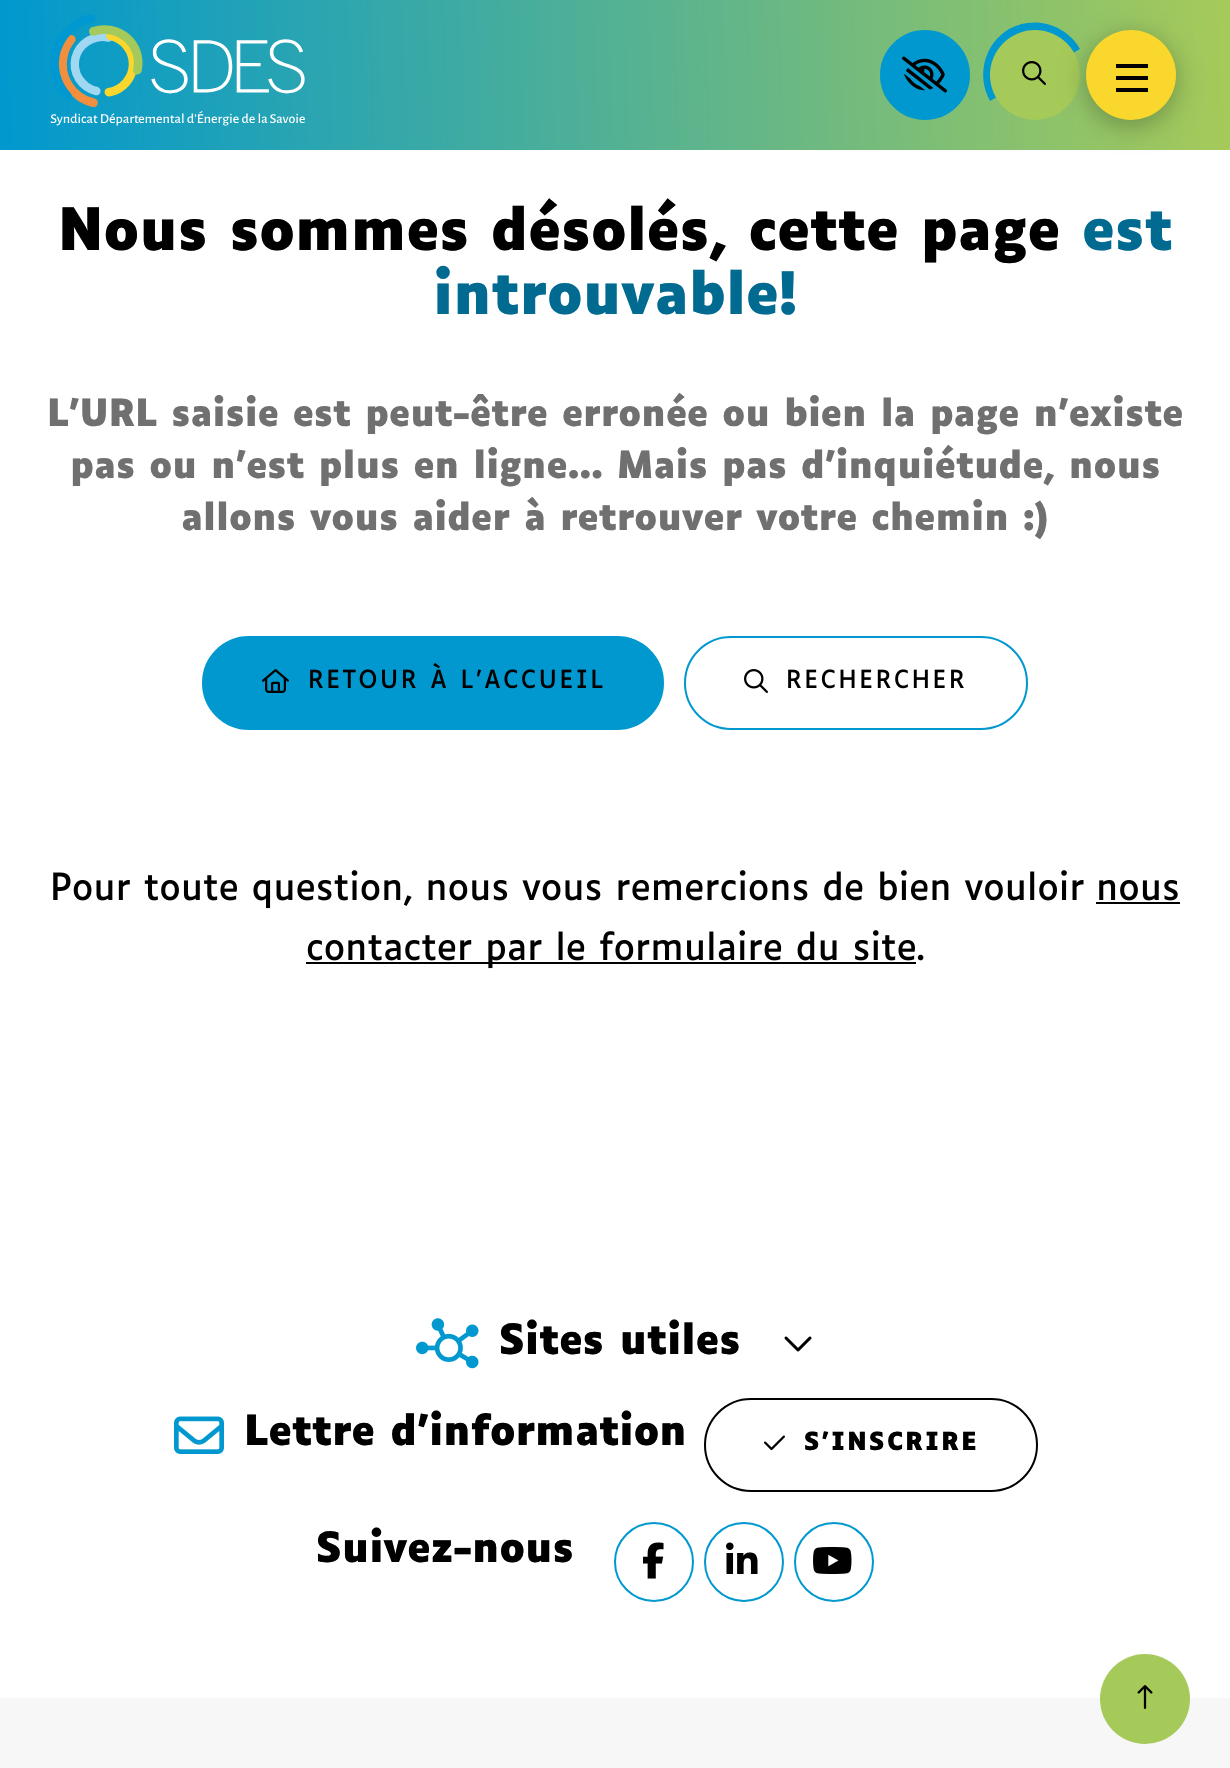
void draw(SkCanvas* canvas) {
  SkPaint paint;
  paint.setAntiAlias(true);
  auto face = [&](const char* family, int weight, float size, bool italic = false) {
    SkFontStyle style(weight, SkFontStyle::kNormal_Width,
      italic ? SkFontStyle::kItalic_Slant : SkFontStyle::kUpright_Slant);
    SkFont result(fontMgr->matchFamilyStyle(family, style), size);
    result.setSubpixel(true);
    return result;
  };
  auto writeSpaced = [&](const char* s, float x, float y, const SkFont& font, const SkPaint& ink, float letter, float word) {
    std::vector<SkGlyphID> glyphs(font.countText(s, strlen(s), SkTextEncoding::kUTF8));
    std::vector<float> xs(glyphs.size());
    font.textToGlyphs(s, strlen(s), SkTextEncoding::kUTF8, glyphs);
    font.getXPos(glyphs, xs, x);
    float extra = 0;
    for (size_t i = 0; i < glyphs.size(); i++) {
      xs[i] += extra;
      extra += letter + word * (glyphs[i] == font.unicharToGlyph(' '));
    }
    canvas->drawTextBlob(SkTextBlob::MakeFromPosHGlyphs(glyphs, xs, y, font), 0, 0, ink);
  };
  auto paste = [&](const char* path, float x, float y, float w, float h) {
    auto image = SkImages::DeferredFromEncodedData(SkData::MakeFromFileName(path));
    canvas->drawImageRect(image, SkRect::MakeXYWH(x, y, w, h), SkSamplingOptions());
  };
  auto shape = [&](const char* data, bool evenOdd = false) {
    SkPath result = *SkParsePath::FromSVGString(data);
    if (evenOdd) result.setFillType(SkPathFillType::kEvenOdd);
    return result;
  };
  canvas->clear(0xffffffff);
  {
    const SkColor colors[] = {0xff0098cf, 0xffa6ca59};
    const float stops[] = {0, 1};
    const SkPoint ends[] = {{-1.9f, 97}, {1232, 53}};
    paint.setShader(SkGradientShader::MakeLinear(ends, colors, stops, 2, SkTileMode::kClamp));
    paint.setAlpha(255);
  }
  canvas->drawRect(SkRect::MakeXYWH(0, 0, 1230, 150), paint);
  paste("img/1.png", 50, 14, 255, 112);
  paint.setShader(nullptr);
  paint.setColor(0xff0098cf);
  canvas->drawCircle(925, 75, 44, paint);
  paint.setStroke(true);
  paint.setStrokeWidth(2);
  canvas->drawCircle(925, 75, 44, paint);
  paste("img/2.png", 902, 56, 45, 37);
  paint.setStroke(false);
  canvas->drawPath(shape("M1009 29C1034 15 1066 24 1080 49L990 101C976 76 984 44 1009 29Z"), paint);
  paint.setColor(0xffa6ca59);
  canvas->drawCircle(1035, 75, 45, paint);
  paste("img/3.png", 1022, 61, 24, 24);
  paint.setColor(0x47000000);
  paint.setMaskFilter(SkMaskFilter::MakeBlur(kNormal_SkBlurStyle, 13));
  canvas->drawRoundRect(SkRect::MakeXYWH(1086, 36, 90, 90), 45, 45, paint);
  paint.setMaskFilter(nullptr);
  paint.setColor(0xfff9d72d);
  canvas->drawCircle(1131, 75, 45, paint);
  {
    const struct { float x, y, w, h; SkColor color; } items[] = {
      {1116, 64, 32, 4, 0xff000000},
      {1116, 76, 32, 4, 0xff000000},
      {1116, 88, 32, 4, 0xff000000},
    };
    for (auto [x, y, w, h, color] : items) {
      paint.setColor(color);
      canvas->drawRect(SkRect::MakeXYWH(x, y, w, h), paint);
    }
  }
  paint.setColor(0xff0098cf);
  canvas->drawRoundRect(SkRect::MakeXYWH(203, 637, 460, 92), 46, 46, paint);
  paint.setStroke(true);
  canvas->drawRoundRect(SkRect::MakeXYWH(203, 637, 460, 92), 46, 46, paint);
  paste("img/4.png", 262, 669, 27, 24);
  paste("img/5.png", 310, 663, 293, 26);
  canvas->drawRoundRect(SkRect::MakeXYWH(685, 637, 342, 92), 46, 46, paint);
  paste("img/6.png", 744, 669, 24, 24);
  paste("img/7.png", 788, 669, 176, 20);
  paste("img/8.png", 53, 870, 1031, 39);
  paste("img/9.png", 1099, 880, 79, 21);
  paint.setStroke(false);
  paint.setColor(0xff000000);
  canvas->drawRect(SkRect::MakeXYWH(1096, 902, 84, 2), paint);
  canvas->drawRect(SkRect::MakeXYWH(306, 962, 610, 2), paint);
  paste("img/10.png", 307, 930, 608, 39);
  paste("img/11.png", 917, 954, 7, 7);
  paste("img/12.png", 416, 1318, 63, 51);
  paste("img/13.png", 784, 1336, 28, 16);
  paste("img/14.png", 174, 1416, 50, 38);
  paint.setStroke(true);
  canvas->drawRoundRect(SkRect::MakeXYWH(705, 1399, 332, 92), 46, 46, paint);
  paste("img/15.png", 764, 1435, 21, 16);
  paint.setColor(0xff0098cf);
  canvas->drawCircle(654, 1562, 39, paint);
  paste("img/16.png", 643, 1542, 21, 37);
  canvas->drawCircle(744, 1562, 39, paint);
  paste("img/17.png", 726, 1542, 32, 32);
  canvas->drawCircle(834, 1562, 39, paint);
  paste("img/18.png", 813, 1547, 39, 27);
  paint.setStroke(false);
  paint.setColor(0xfff7f7f7);
  canvas->drawRect(SkRect::MakeXYWH(0, 1698, 1230, 70), paint);
  paint.setColor(0xffa6ca59);
  canvas->drawCircle(1145, 1699, 45, paint);
  paste("img/19.png", 1137, 1685, 16, 24);
  auto f0 = face("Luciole", 700, 56);
  paint.setColor(0xff000000);
  canvas->drawString("Nous sommes désolés, cette page", 58, 250, f0, paint);
  paint.setColor(0xff006a91);
  canvas->drawString("est", 1082, 250, f0, paint);
  canvas->drawString("introuvable!", 433, 314, f0, paint);
  auto f1 = face("Luciole", 700, 36);
  paint.setColor(0xff707070);
  {
    const struct { const char* s; float x, y; } items[] = {
      {"L'URL saisie est peut-être erronée ou bien la page n'existe", 47, 426},
      {"pas ou n'est plus en ligne… Mais pas d'inquiétude, nous", 70, 478},
      {"allons vous aider à retrouver votre chemin :)", 181, 530},
    };
    for (auto [s, x, y] : items) {
      canvas->drawString(s, x, y, f1, paint);
    }
  }
  auto f2 = face("Luciole", 700, 40);
  paint.setColor(0xff000000);
  canvas->drawString("Sites utiles", 499, 1354, f2, paint);
  canvas->drawString("Lettre d’information", 244, 1445, f2, paint);
  auto f3 = face("Luciole", 700, 24);
  writeSpaced("S’INSCRIRE", 804, 1450, f3, paint, 2.4f, 0);
  canvas->drawString("Suivez-nous", 316, 1562, f2, paint);
}
